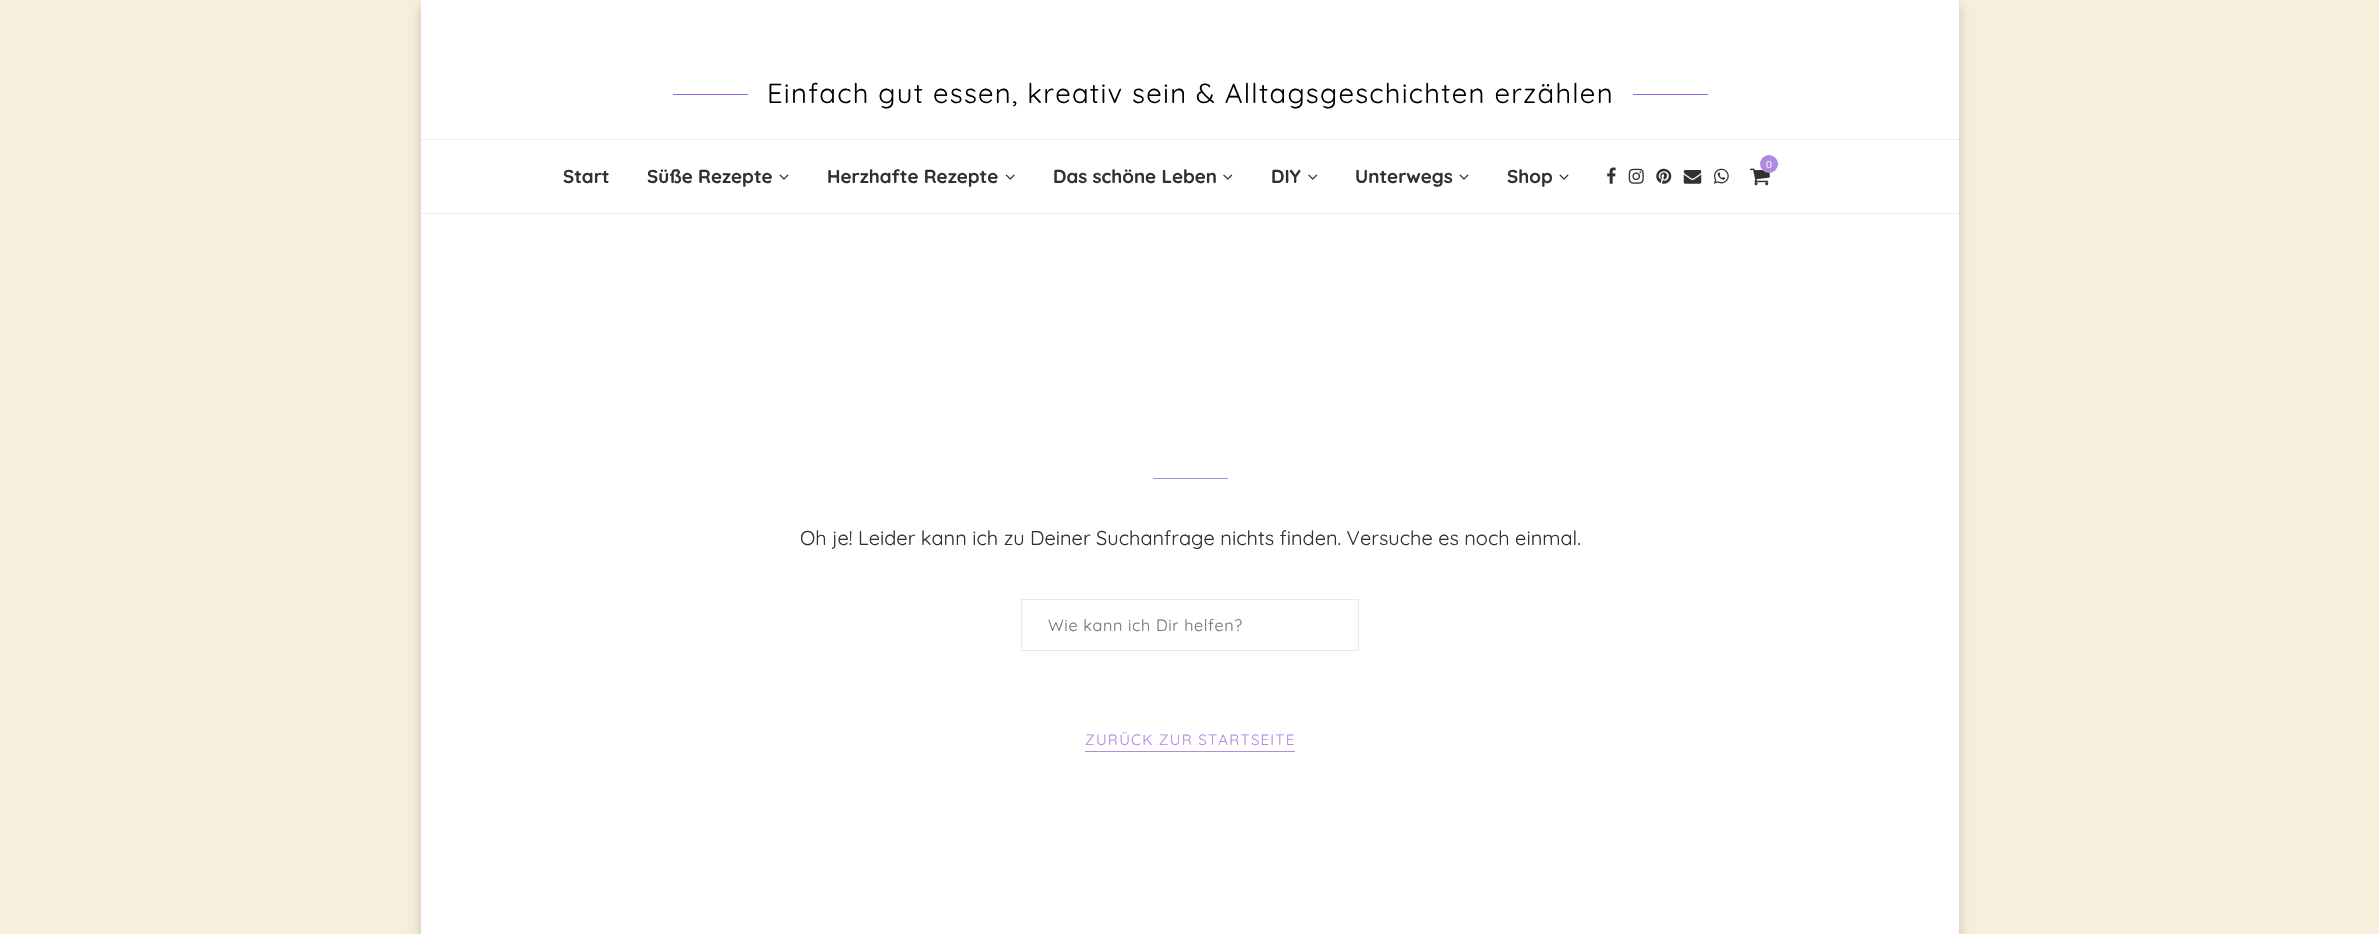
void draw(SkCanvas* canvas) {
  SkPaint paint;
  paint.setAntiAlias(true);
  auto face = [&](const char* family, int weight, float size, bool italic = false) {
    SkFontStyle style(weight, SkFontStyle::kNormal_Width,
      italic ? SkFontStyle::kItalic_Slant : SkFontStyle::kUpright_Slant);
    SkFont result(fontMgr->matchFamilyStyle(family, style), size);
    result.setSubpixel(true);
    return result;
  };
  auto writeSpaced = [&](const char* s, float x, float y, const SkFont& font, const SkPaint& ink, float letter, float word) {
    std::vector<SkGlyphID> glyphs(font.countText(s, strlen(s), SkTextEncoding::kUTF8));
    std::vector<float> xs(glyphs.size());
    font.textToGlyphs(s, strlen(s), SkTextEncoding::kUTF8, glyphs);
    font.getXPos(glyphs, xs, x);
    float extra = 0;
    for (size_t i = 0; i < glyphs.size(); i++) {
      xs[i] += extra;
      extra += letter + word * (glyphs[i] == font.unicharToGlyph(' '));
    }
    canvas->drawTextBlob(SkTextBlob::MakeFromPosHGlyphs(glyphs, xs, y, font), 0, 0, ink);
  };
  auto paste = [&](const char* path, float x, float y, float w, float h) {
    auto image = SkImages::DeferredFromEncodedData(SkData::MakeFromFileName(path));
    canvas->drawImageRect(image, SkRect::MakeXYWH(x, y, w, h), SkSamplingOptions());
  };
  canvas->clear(0xfff7eedb);
  paint.setColor(0x33000000);
  paint.setMaskFilter(SkMaskFilter::MakeBlur(kNormal_SkBlurStyle, 5));
  canvas->drawRect(SkRect::MakeXYWH(421, 6, 1538, 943), paint);
  paint.setMaskFilter(nullptr);
  {
    const struct { float x, y, w, h; SkColor color; } items[] = {
      {421, 0, 1538, 934, 0xffffffff},
      {673, 94, 75, 1, 0xff9761e4},
      {1633, 94, 75, 1, 0xff9761e4},
      {421, 139, 1538, 1, 0xffececec},
      {421, 213, 1538, 1, 0xffececec},
    };
    for (auto [x, y, w, h, color] : items) {
      paint.setColor(color);
      canvas->drawRect(SkRect::MakeXYWH(x, y, w, h), paint);
    }
  }
  paste("img/1.png", 1750, 168, 20, 18);
  paint.setColor(0xffae8bdf);
  canvas->drawCircle(1769, 164, 9, paint);
  paste("img/2.png", 779, 174, 10, 6);
  paste("img/3.png", 1005, 174, 10, 6);
  paste("img/4.png", 1223, 174, 10, 6);
  paste("img/4.png", 1308, 174, 10, 6);
  paste("img/2.png", 1459, 174, 10, 6);
  paste("img/2.png", 1559, 174, 10, 6);
  paste("img/5.png", 1607, 167, 9, 17);
  paste("img/6.png", 1628, 168, 16, 16);
  paste("img/7.png", 1656, 168, 16, 16);
  paste("img/8.png", 1683, 170, 19, 14);
  paste("img/9.png", 1713, 168, 16, 16);
  canvas->drawRect(SkRect::MakeXYWH(1153, 478, 75, 1), paint);
  paint.setStroke(true);
  paint.setStrokeWidth(1);
  paint.setColor(0xffe9e9e9);
  canvas->drawRect(SkRect::MakeXYWH(1021.5f, 599.5f, 337, 51), paint);
  paint.setStroke(false);
  paint.setColor(0xffae8bdf);
  canvas->drawRect(SkRect::MakeXYWH(1085, 751, 210, 1), paint);
  auto f0 = face("Quicksand", 400, 27.5f);
  paint.setColor(0xff000000);
  writeSpaced("Einfach gut essen, kreativ sein & Alltagsgeschichten erzählen", 767, 103, f0, paint, 1.25f, 0);
  auto f1 = face("Quicksand", 400, 10);
  paint.setColor(0xffffffff);
  canvas->drawString("0", 1766, 168, f1, paint);
  auto f2 = face("Quicksand", 700, 18.75f);
  paint.setColor(0xff313131);
  {
    const struct { const char* s; float x, y; } items[] = {
      {"Start", 563, 183},
      {"Süße Rezepte", 647, 183},
      {"Herzhafte Rezepte", 827, 183},
      {"Das schöne Leben", 1053, 183},
      {"DIY", 1271, 183},
      {"Unterwegs", 1355, 183},
      {"Shop", 1507, 183},
    };
    for (auto [s, x, y] : items) {
      canvas->drawString(s, x, y, f2, paint);
    }
  }
  auto f3 = face("Quicksand", 400, 20);
  canvas->drawString("Oh je! Leider kann ich zu Deiner Suchanfrage nichts finden. Versuche es noch einmal.", 800, 545, f3, paint);
  auto f4 = face("Quicksand", 400, 16.25f);
  paint.setColor(0xff757575);
  writeSpaced("Wie kann ich Dir helfen?", 1048, 631, f4, paint, 0.6f, 0);
  auto f5 = face("Quicksand", 400, 15);
  paint.setColor(0xffae8bdf);
  writeSpaced("ZURÜCK ZUR STARTSEITE", 1085, 745, f5, paint, 1.25f, 0);
}
